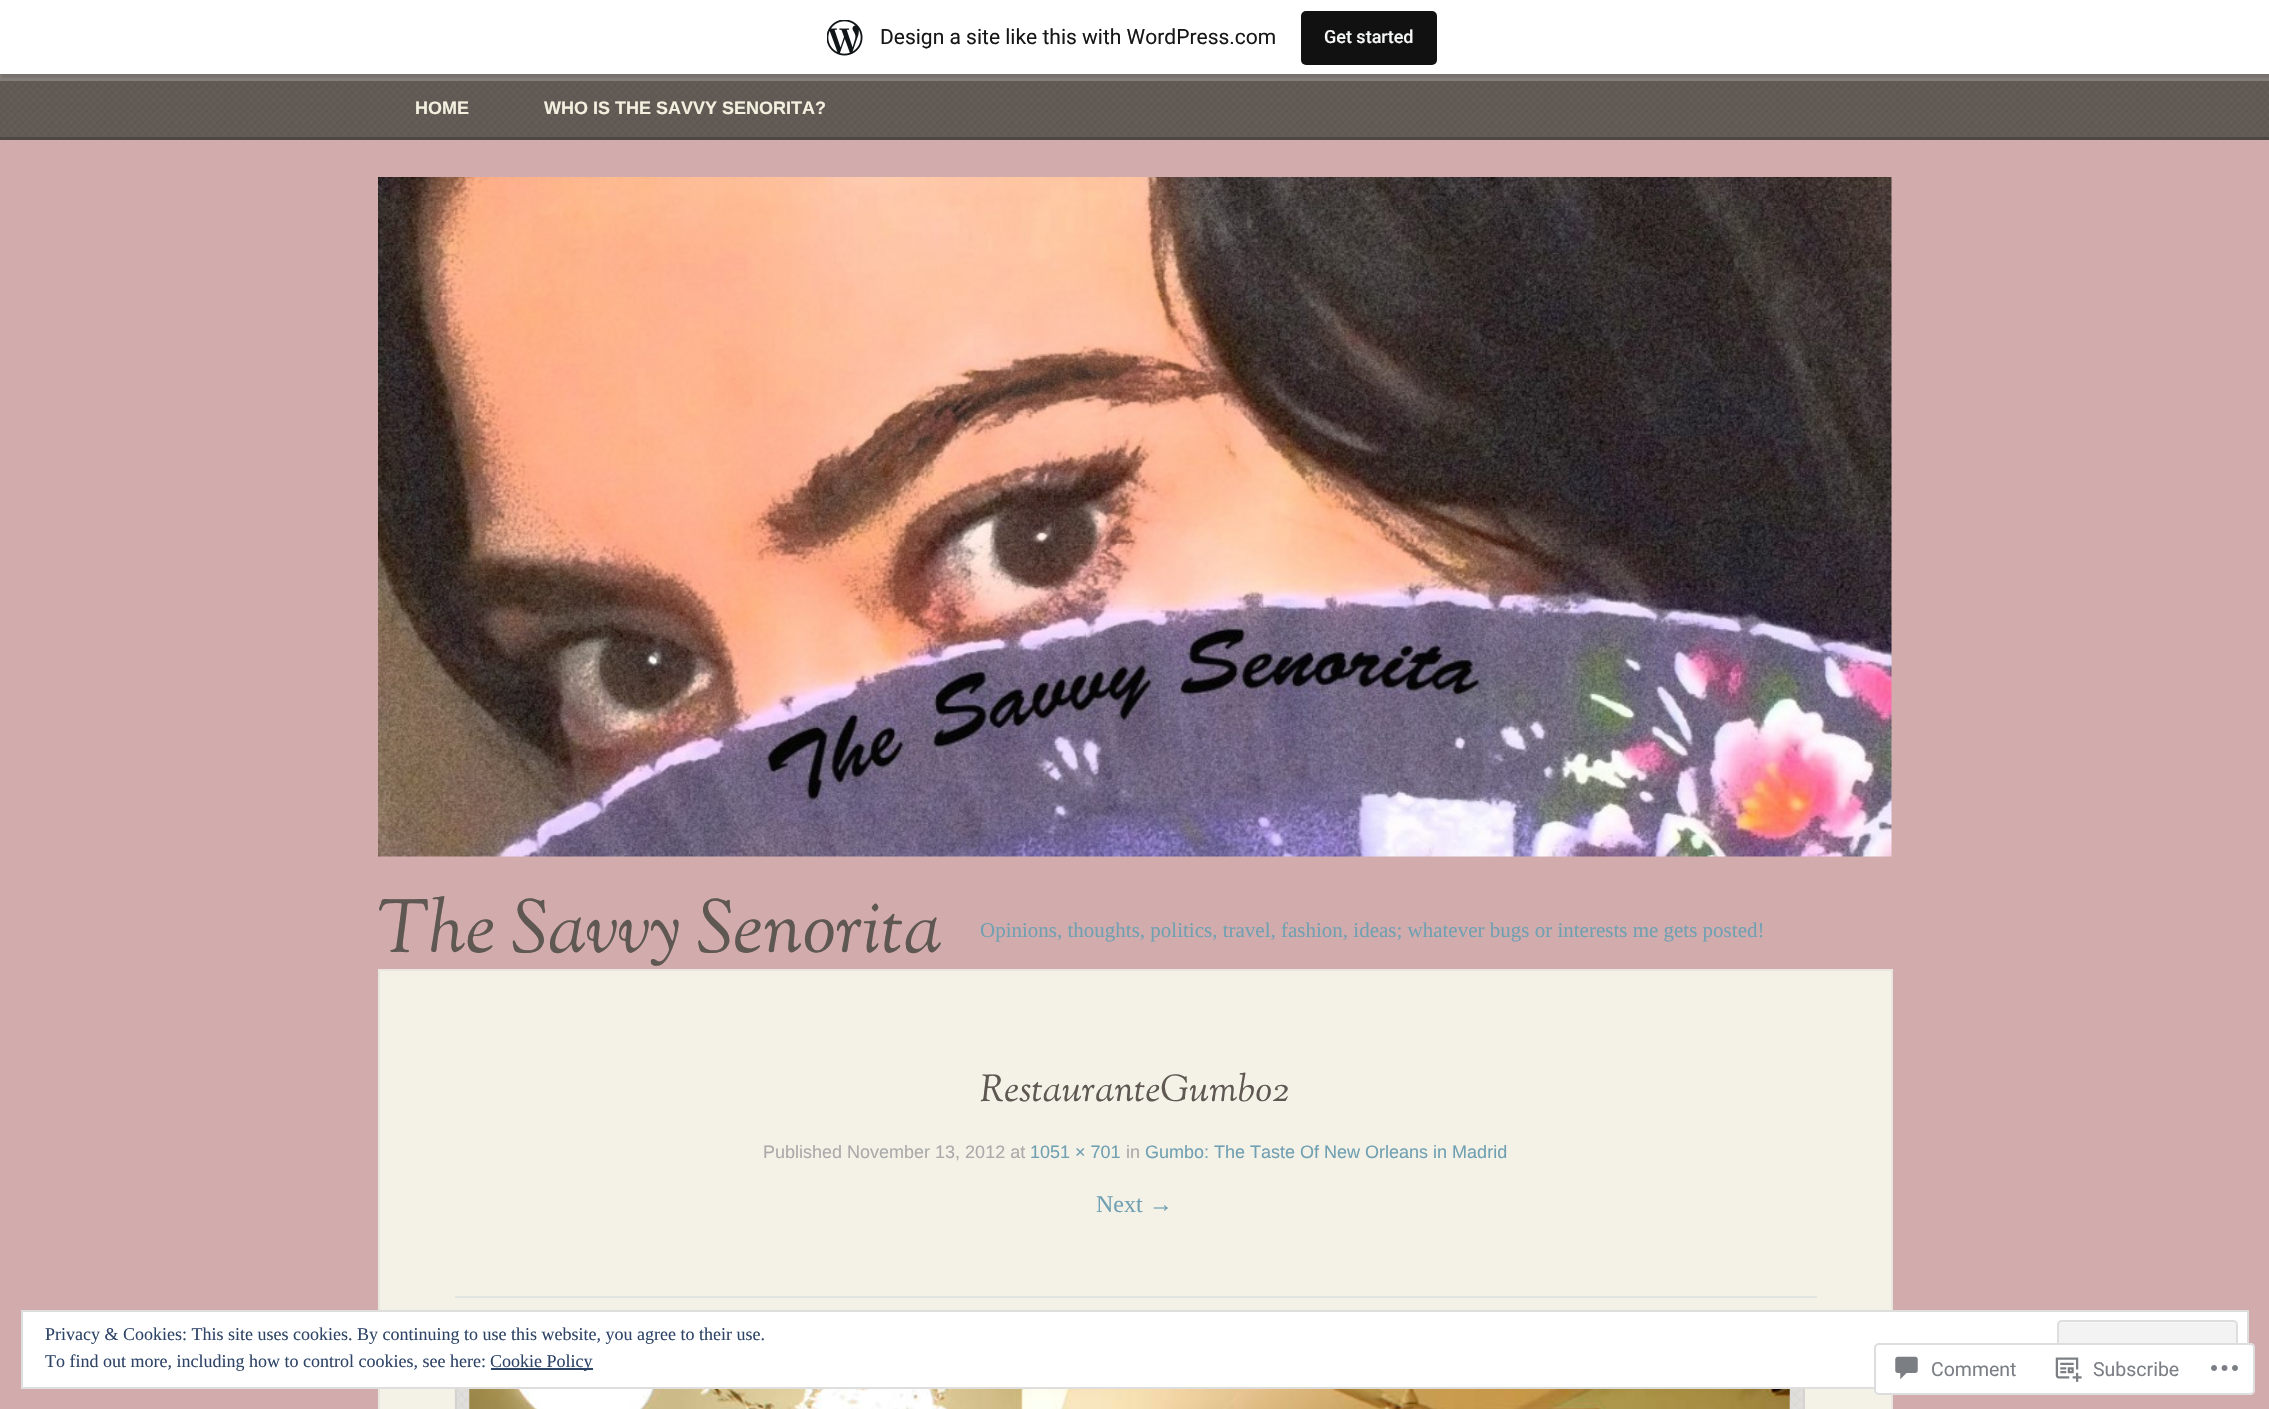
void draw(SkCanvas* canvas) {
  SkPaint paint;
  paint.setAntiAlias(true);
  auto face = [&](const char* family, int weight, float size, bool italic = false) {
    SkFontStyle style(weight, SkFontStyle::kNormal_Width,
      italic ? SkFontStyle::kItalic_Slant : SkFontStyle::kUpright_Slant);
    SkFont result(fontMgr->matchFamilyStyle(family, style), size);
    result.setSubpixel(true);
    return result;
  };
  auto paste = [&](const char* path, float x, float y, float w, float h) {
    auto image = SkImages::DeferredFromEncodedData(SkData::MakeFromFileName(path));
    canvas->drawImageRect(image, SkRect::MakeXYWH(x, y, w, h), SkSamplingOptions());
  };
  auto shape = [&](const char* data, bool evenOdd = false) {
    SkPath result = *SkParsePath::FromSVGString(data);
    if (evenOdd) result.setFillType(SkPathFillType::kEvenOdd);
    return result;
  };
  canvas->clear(0xffd2acac);
  paint.setColor(0xff847e79);
  canvas->drawRect(SkRect::MakeXYWH(0, 74, 2269, 7), paint);
  paint.setColor(0x0d000000);
  paint.setMaskFilter(SkMaskFilter::MakeBlur(kNormal_SkBlurStyle, 1.5f));
  canvas->drawRect(SkRect::MakeXYWH(0, 2, 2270, 73), paint);
  paint.setMaskFilter(nullptr);
  paint.setColor(0x14000000);
  canvas->drawPath(shape("M2 74V78H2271V5H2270V74Z"), paint);
  paint.setColor(0xffffffff);
  canvas->drawRect(SkRect::MakeXYWH(0, 0, 2269, 74), paint);
  paste("img/1.png", 827, 20, 36, 36);
  paint.setColor(0xff111111);
  canvas->drawRoundRect(SkRect::MakeXYWH(1301, 11, 136, 54), 5, 5, paint);
  paste("img/2.png", 0, 81, 2269, 56);
  paint.setColor(0xff4e4844);
  canvas->drawRect(SkRect::MakeXYWH(0, 137, 2269, 3), paint);
  paste("img/3.png", 378, 177, 1514, 680);
  paint.setColor(0xfff4f2e7);
  canvas->drawRect(SkRect::MakeXYWH(379, 970, 1513, 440), paint);
  paint.setStroke(true);
  paint.setStrokeWidth(2);
  paint.setColor(0xffe8e6de);
  canvas->drawRect(SkRect::MakeXYWH(379, 970, 1513, 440), paint);
  paint.setStroke(false);
  paint.setColor(0xffe2e6e2);
  canvas->drawRect(SkRect::MakeXYWH(455, 1296, 1362, 2), paint);
  paste("img/4.png", 454, 1389, 1349, 20);
  paint.setStroke(true);
  paint.setColor(0xffd5d3d1);
  canvas->drawRect(SkRect::MakeXYWH(456, 1336, 1348, 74), paint);
  paste("img/5.png", 469, 1389, 1321, 20);
  paint.setStroke(false);
  paint.setColor(0xffffffff);
  canvas->drawRect(SkRect::MakeXYWH(22, 1311, 2226, 77), paint);
  paint.setStroke(true);
  paint.setColor(0xffdedede);
  canvas->drawRect(SkRect::MakeXYWH(22, 1311, 2226, 77), paint);
  paint.setStroke(false);
  paint.setColor(0xfff3f3f3);
  canvas->drawRoundRect(SkRect::MakeXYWH(2057, 1320, 181, 59), 5, 5, paint);
  paint.setColor(0xfff9f9f9);
  canvas->drawPath(shape("M2061 1323H2234C2235 1323 2236 1324 2236 1326V1376C2237 1376 2237 1375 2237 1374V1325C2237 1323 2236 1322 2234 1322H2061C2059 1322 2058 1323 2058 1325V1326C2058 1324 2059 1323 2061 1323Z"), paint);
  paint.setStroke(true);
  paint.setColor(0xffdedede);
  canvas->drawRoundRect(SkRect::MakeXYWH(2058, 1321, 179, 57), 4, 4, paint);
  paint.setStroke(false);
  paint.setColor(0xff2e4467);
  canvas->drawRect(SkRect::MakeXYWH(491, 1368, 102, 2), paint);
  paint.setColor(0xfaffffff);
  canvas->drawRoundRect(SkRect::MakeXYWH(1874, 1343, 381, 52), 5, 5, paint);
  paint.setStroke(true);
  paint.setColor(0xfadcdcde);
  canvas->drawRoundRect(SkRect::MakeXYWH(1875, 1344, 379, 50), 4, 4, paint);
  paste("img/6.png", 1895, 1356, 23, 24);
  paste("img/7.png", 2055, 1357, 27, 25);
  paste("img/8.png", 2211, 1365, 27, 6);
  auto f0 = face("Roboto", 400, 21);
  paint.setStroke(false);
  paint.setColor(0xff171717);
  canvas->drawString("Design a site like this with WordPress.com", 880, 44, f0, paint);
  auto f1 = face("Roboto", 500, 18);
  paint.setColor(0xfff6f7f7);
  canvas->drawString("Get started", 1324, 43, f1, paint);
  auto f2 = face("Liberation Sans", 700, 18);
  paint.setColor(0xfff3f0e0);
  canvas->drawString("HOME", 415, 114, f2, paint);
  canvas->drawString("WHO IS THE SAVVY SENORITA?", 544, 114, f2, paint);
  auto f3 = face("Sorts Mill Goudy", 500, 75, true);
  paint.setColor(0xff5e5752);
  canvas->drawString("The Savvy Senorita", 377, 952, f3, paint);
  auto f4 = face("Liberation Serif", 400, 21);
  paint.setColor(0xff70a0b2);
  canvas->drawString("Opinions, thoughts, politics, travel, fashion, ideas; whatever bugs or interests me gets posted!", 980, 937, f4, paint);
  auto f5 = face("Sorts Mill Goudy", 500, 37.5f, true);
  paint.setColor(0xff5e5752);
  canvas->drawString("RestauranteGumbo2", 980, 1101, f5, paint);
  auto f6 = face("Liberation Sans", 400, 18);
  paint.setColor(0xffaaaaaa);
  canvas->drawString("Published November 13, 2012 at", 763, 1158, f6, paint);
  paint.setColor(0xff70a0b2);
  canvas->drawString("1051 × 701", 1030, 1158, f6, paint);
  paint.setColor(0xffaaaaaa);
  canvas->drawString("in", 1126, 1158, f6, paint);
  paint.setColor(0xff70a0b2);
  canvas->drawString("Gumbo: The Taste Of New Orleans in Madrid", 1145, 1158, f6, paint);
  auto f7 = face("Liberation Serif", 400, 24);
  canvas->drawString("Next →", 1096, 1212, f7, paint);
  auto f8 = face("Liberation Serif", 400, 18);
  paint.setColor(0xff2e4467);
  {
    const struct { const char* s; float x, y; } items[] = {
      {"Privacy & Cookies: This site uses cookies. By continuing to use this website, you agree to their use.", 45, 1340},
      {"To find out more, including how to control cookies, see here:", 45, 1367},
      {"Cookie Policy", 490, 1367},
    };
    for (auto [s, x, y] : items) {
      canvas->drawString(s, x, y, f8, paint);
    }
  }
  auto f9 = face("Roboto", 400, 19.5f);
  paint.setColor(0xff7b7f85);
  canvas->drawString("Comment", 1931, 1376, f9, paint);
  canvas->drawString("Subscribe", 2093, 1376, f9, paint);
}
